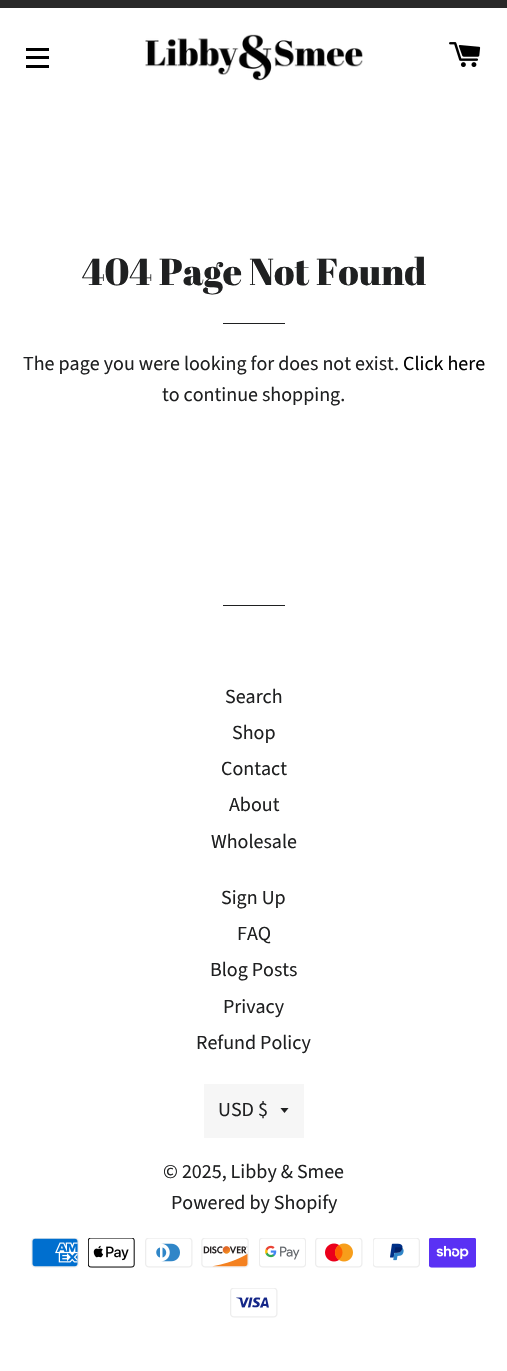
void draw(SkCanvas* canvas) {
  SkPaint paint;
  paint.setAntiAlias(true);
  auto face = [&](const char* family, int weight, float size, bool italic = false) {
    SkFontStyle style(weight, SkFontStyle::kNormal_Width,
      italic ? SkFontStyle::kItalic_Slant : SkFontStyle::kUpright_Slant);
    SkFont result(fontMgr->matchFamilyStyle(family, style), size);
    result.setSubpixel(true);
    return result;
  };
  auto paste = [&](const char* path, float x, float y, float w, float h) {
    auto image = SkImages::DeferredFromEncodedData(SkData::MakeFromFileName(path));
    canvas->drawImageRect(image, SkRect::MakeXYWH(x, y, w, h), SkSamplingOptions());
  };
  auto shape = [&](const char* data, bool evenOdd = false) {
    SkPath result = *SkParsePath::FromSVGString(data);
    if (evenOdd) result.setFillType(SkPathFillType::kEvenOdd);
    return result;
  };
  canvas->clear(0xffffffff);
  {
    const struct { float x, y, w, h; SkColor color; } items[] = {
      {0, 0, 507, 8, 0xff292929},
      {26, 48, 23, 3, 0xff000000},
      {26, 56, 23, 3, 0xff000000},
      {26, 65, 23, 3, 0xff000000},
    };
    for (auto [x, y, w, h, color] : items) {
      paint.setColor(color);
      canvas->drawRect(SkRect::MakeXYWH(x, y, w, h), paint);
    }
  }
  paste("img/1.png", 145, 34, 218, 47);
  paste("img/2.png", 449, 42, 32, 25);
  {
    const struct { float x, y, w, h; SkColor color; } items[] = {
      {223, 323, 62, 1, 0xff1f2021},
      {223, 605, 62, 1, 0xff1f2021},
      {204, 1084, 100, 54, 0xfff6f6f6},
    };
    for (auto [x, y, w, h, color] : items) {
      paint.setColor(color);
      canvas->drawRect(SkRect::MakeXYWH(x, y, w, h), paint);
    }
  }
  canvas->save();
  canvas->clipRect(SkRect::MakeXYWH(280, 1108, 10, 6));
  paint.setColor(0xff1f2021);
  canvas->drawPath(shape("M280 1107.5L284.5 1113L289 1107.5Z"), paint);
  canvas->restore();
  paste("img/3.png", 31, 1238, 48, 30);
  paste("img/4.png", 88, 1238, 47, 30);
  paste("img/5.png", 145, 1238, 48, 30);
  paste("img/6.png", 201, 1238, 48, 30);
  paste("img/7.png", 259, 1238, 47, 30);
  paste("img/8.png", 315, 1238, 48, 30);
  paste("img/9.png", 373, 1238, 47, 30);
  paste("img/10.png", 429, 1238, 47, 30);
  paste("img/11.png", 230, 1288, 48, 30);
  auto f0 = face("Abril Fatface", 400, 37.5f);
  canvas->drawString("404 Page Not Found", 82, 285, f0, paint);
  auto f1 = face("Source Sans Pro", 400, 20);
  canvas->drawString("The page you were looking for does not exist.", 23, 370, f1, paint);
  paint.setColor(0xff000000);
  canvas->drawString("Click here", 403, 370, f1, paint);
  paint.setColor(0xff1f2021);
  {
    const struct { const char* s; float x, y; } items[] = {
      {"to continue shopping.", 162, 401},
      {"Search", 225, 703},
      {"Shop", 232, 739},
      {"Contact", 221, 775},
      {"About", 229, 811},
      {"Wholesale", 211, 848},
      {"Sign Up", 221, 904},
      {"FAQ", 237, 940},
      {"Blog Posts", 210, 976},
      {"Privacy", 223, 1013},
      {"Refund Policy", 196, 1049},
      {"USD $", 218, 1116},
      {"© 2025, Libby & Smee", 163, 1178},
      {"Powered by Shopify", 171, 1209},
    };
    for (auto [s, x, y] : items) {
      canvas->drawString(s, x, y, f1, paint);
    }
  }
}
